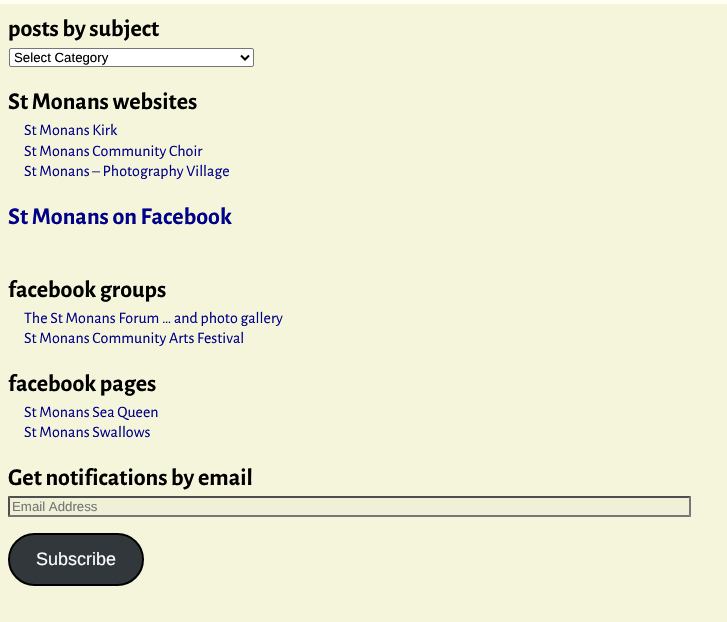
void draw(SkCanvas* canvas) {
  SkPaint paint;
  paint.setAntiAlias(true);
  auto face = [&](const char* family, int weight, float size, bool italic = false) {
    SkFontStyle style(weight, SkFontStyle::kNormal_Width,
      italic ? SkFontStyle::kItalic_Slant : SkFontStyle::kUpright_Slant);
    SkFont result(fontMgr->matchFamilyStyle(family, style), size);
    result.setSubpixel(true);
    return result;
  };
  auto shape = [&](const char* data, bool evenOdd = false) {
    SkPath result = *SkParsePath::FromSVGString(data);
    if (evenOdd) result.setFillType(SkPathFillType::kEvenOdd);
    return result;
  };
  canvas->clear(0xfffffff0);
  paint.setColor(0xfff5f5dc);
  canvas->drawRect(SkRect::MakeXYWH(0, 4, 727, 618), paint);
  paint.setColor(0xffffffff);
  canvas->drawRoundRect(SkRect::MakeXYWH(9.5f, 48.5f, 244, 18), 1.5f, 1.5f, paint);
  paint.setStroke(true);
  paint.setStrokeWidth(1);
  paint.setColor(0xff767676);
  canvas->drawRoundRect(SkRect::MakeXYWH(9.5f, 48.5f, 244, 18), 1.5f, 1.5f, paint);
  paint.setStrokeWidth(2);
  paint.setColor(0xff000000);
  canvas->drawPath(shape("M241 55.5L245 59.5L249 55.5"), paint);
  paint.setStroke(false);
  paint.setColor(0xfff0f0d6);
  canvas->drawRect(SkRect::MakeXYWH(8, 496, 683, 21), paint);
  paint.setColor(0xff4f4f4f);
  canvas->drawPath(shape("M8 496H691L689 498H10Z"), paint);
  paint.setColor(0xff767676);
  canvas->drawPath(shape("M691 496V517L689 515V498Z"), paint);
  canvas->drawPath(shape("M691 517H8L10 515H689Z"), paint);
  paint.setColor(0xff4f4f4f);
  canvas->drawPath(shape("M8 517V496L10 498V515Z"), paint);
  paint.setColor(0xff32373c);
  canvas->drawRoundRect(SkRect::MakeXYWH(9, 534, 134, 51), 25.5f, 25.5f, paint);
  paint.setStroke(true);
  paint.setColor(0xff000000);
  canvas->drawRoundRect(SkRect::MakeXYWH(9, 534, 134, 51), 25.5f, 25.5f, paint);
  auto f0 = face("Alegreya Sans", 700, 24);
  paint.setStroke(false);
  canvas->drawString("posts by subject", 8, 36, f0, paint);
  auto f1 = face("Liberation Sans", 400, 13.25f);
  canvas->drawString("Select Category", 14, 62, f1, paint);
  canvas->drawString("St Monans websites", 8, 109, f0, paint);
  auto f2 = face("Alegreya Sans", 400, 16);
  paint.setColor(0xff000088);
  {
    const struct { const char* s; float x, y; } items[] = {
      {"St Monans Kirk", 24, 135},
      {"St Monans Community Choir", 24, 156},
      {"St Monans – Photography Village", 24, 176},
    };
    for (auto [s, x, y] : items) {
      canvas->drawString(s, x, y, f2, paint);
    }
  }
  canvas->drawString("St Monans on Facebook", 8, 224, f0, paint);
  paint.setColor(0xff000000);
  canvas->drawString("facebook groups", 8, 297, f0, paint);
  paint.setColor(0xff000088);
  canvas->drawString("The St Monans Forum … and photo gallery", 24, 323, f2, paint);
  canvas->drawString("St Monans Community Arts Festival", 24, 343, f2, paint);
  paint.setColor(0xff000000);
  canvas->drawString("facebook pages", 8, 391, f0, paint);
  paint.setColor(0xff000088);
  canvas->drawString("St Monans Sea Queen", 24, 417, f2, paint);
  canvas->drawString("St Monans Swallows", 24, 437, f2, paint);
  paint.setColor(0xff000000);
  canvas->drawString("Get notifications by email", 8, 485, f0, paint);
  paint.setColor(0xff757575);
  canvas->drawString("Email Address", 12, 511, f1, paint);
  auto f3 = face("Liberation Sans", 400, 18);
  paint.setColor(0xffffffff);
  canvas->drawString("Subscribe", 36, 565, f3, paint);
}
